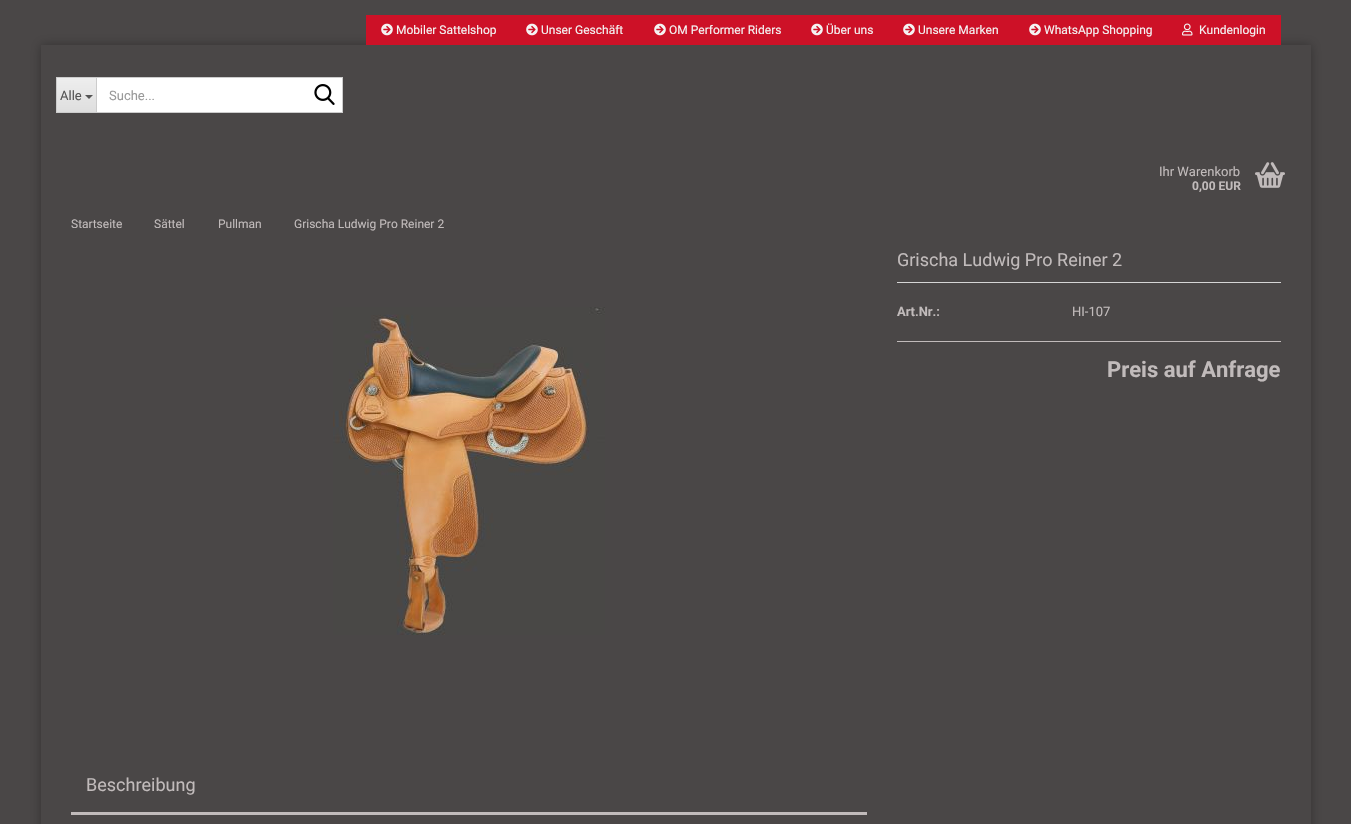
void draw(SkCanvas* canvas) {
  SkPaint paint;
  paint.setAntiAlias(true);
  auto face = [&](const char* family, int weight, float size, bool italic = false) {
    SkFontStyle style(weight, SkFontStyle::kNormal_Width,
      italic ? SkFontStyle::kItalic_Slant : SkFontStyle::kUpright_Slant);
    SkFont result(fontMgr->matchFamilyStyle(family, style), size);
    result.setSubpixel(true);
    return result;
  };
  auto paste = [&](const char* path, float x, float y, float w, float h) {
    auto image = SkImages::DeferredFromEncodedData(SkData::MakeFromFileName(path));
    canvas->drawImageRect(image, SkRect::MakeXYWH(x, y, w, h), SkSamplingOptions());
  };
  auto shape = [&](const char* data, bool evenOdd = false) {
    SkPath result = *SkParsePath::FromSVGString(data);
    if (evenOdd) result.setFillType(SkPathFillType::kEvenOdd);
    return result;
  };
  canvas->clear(0xff4a4747);
  canvas->save();
  canvas->clipPath(shape("M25 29H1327V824H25ZM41 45H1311V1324H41Z", true), true);
  paint.setColor(0x4d000000);
  paint.setMaskFilter(SkMaskFilter::MakeBlur(kNormal_SkBlurStyle, 5));
  canvas->drawRect(SkRect::MakeXYWH(41, 45, 1270, 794), paint);
  paint.setMaskFilter(nullptr);
  canvas->restore();
  paint.setColor(0xffcd1127);
  canvas->drawRect(SkRect::MakeXYWH(366, 15, 915, 30), paint);
  paste("img/1.png", 381, 23, 12, 13);
  paste("img/1.png", 526, 23, 12, 13);
  paste("img/1.png", 654, 23, 12, 13);
  paste("img/1.png", 811, 23, 12, 13);
  paste("img/1.png", 903, 23, 12, 13);
  paste("img/1.png", 1029, 23, 12, 13);
  paste("img/2.png", 1182, 23, 11, 13);
  {
    const SkColor colors[] = {0xffeeeeee, 0xffdedede};
    const float stops[] = {0, 1};
    const SkPoint ends[] = {{77, 78}, {77, 112}};
    paint.setShader(SkGradientShader::MakeLinear(ends, colors, stops, 2, SkTileMode::kClamp));
    paint.setAlpha(255);
  }
  canvas->drawRect(SkRect::MakeXYWH(57, 78, 39, 34), paint);
  paint.setShader(nullptr);
  {
    const struct { float x, y, w, h; SkColor color; } items[] = {
      {56, 77, 40, 1, 0xffcccccc},
      {56, 112, 40, 1, 0xffcccccc},
      {56, 77, 1, 36, 0xffcccccc},
    };
    for (auto [x, y, w, h, color] : items) {
      paint.setColor(color);
      canvas->drawRect(SkRect::MakeXYWH(x, y, w, h), paint);
    }
  }
  paint.setColor(0xff555555);
  canvas->drawPath(shape("M85 95H93L89 99Z"), paint);
  paint.setColor(0xffffffff);
  canvas->drawRect(SkRect::MakeXYWH(96.5f, 77.5f, 246, 35), paint);
  paint.setStroke(true);
  paint.setStrokeWidth(1);
  paint.setColor(0xffcccccc);
  canvas->drawRect(SkRect::MakeXYWH(96.5f, 77.5f, 246, 35), paint);
  paste("img/3.png", 314, 84, 21, 21);
  paste("img/4.png", 1255, 162, 30, 26);
  paste("img/5.png", 333, 307, 272, 328);
  paint.setStroke(false);
  {
    const struct { float x, y, w, h; SkColor color; } items[] = {
      {897, 282, 384, 1, 0xffd5d5d5},
      {897, 341, 384, 1, 0xffc1bbbb},
      {71, 812, 796, 3, 0xffc1bbbb},
    };
    for (auto [x, y, w, h, color] : items) {
      paint.setColor(color);
      canvas->drawRect(SkRect::MakeXYWH(x, y, w, h), paint);
    }
  }
  auto f0 = face("Roboto", 400, 12);
  paint.setColor(0xfff4f3f3);
  {
    const struct { const char* s; float x, y; } items[] = {
      {"Mobiler Sattelshop", 396, 34},
      {"Unser Geschäft", 541, 34},
      {"OM Performer Riders", 669, 34},
      {"Über uns", 826, 34},
      {"Unsere Marken", 918, 34},
      {"WhatsApp Shopping", 1044, 34},
      {"Kundenlogin", 1199, 34},
    };
    for (auto [s, x, y] : items) {
      canvas->drawString(s, x, y, f0, paint);
    }
  }
  auto f1 = face("Roboto", 400, 13);
  paint.setColor(0xff555555);
  canvas->drawString("Alle", 60, 100, f1, paint);
  paint.setColor(0xff999999);
  canvas->drawString("Suche...", 109, 100, f1, paint);
  paint.setColor(0xffc1bbbb);
  canvas->drawString("Ihr Warenkorb", 1159, 176, f1, paint);
  auto f2 = face("Roboto", 700, 12);
  canvas->drawString("0,00 EUR", 1192, 190, f2, paint);
  {
    const struct { const char* s; float x, y; } items[] = {
      {"Startseite", 71, 228},
      {"Sättel", 154, 228},
      {"Pullman", 218, 228},
      {"Grischa Ludwig Pro Reiner 2", 294, 228},
    };
    for (auto [s, x, y] : items) {
      canvas->drawString(s, x, y, f0, paint);
    }
  }
  auto f3 = face("Roboto", 400, 18);
  canvas->drawString("Grischa Ludwig Pro Reiner 2", 897, 266, f3, paint);
  auto f4 = face("Roboto", 700, 13);
  canvas->drawString("Art.Nr.:", 897, 316, f4, paint);
  canvas->drawString("HI-107", 1072, 316, f1, paint);
  auto f5 = face("Roboto", 700, 22);
  canvas->drawString("Preis auf Anfrage", 1107, 377, f5, paint);
  canvas->drawString("Beschreibung", 86, 791, f3, paint);
}
